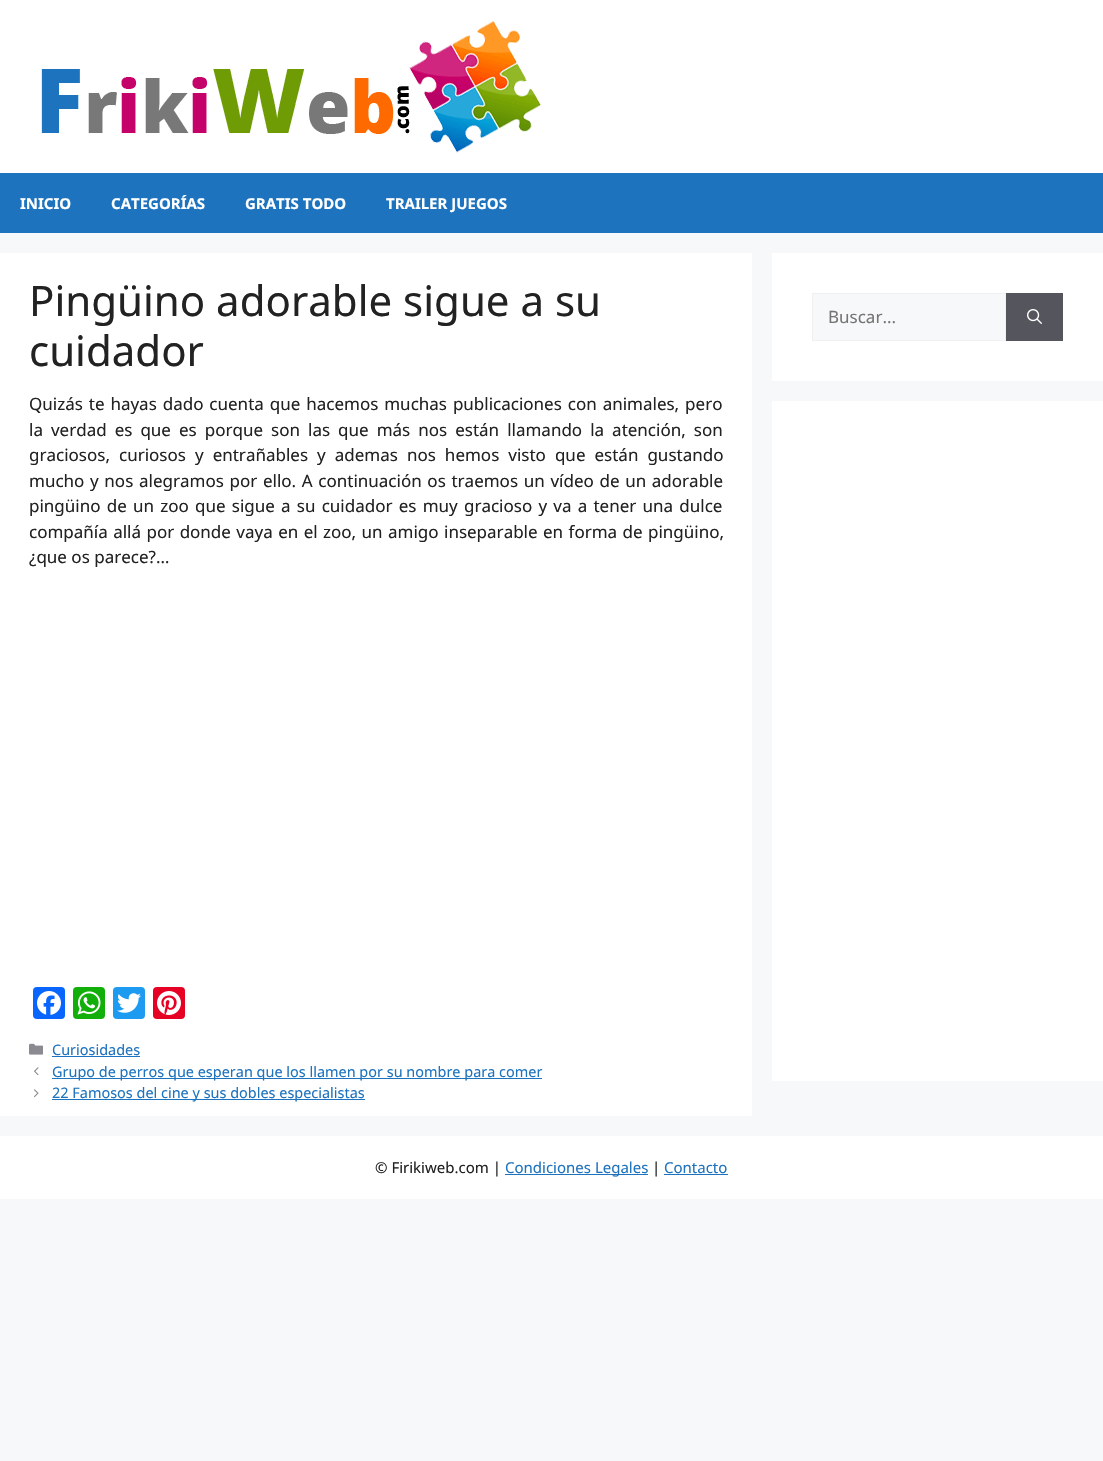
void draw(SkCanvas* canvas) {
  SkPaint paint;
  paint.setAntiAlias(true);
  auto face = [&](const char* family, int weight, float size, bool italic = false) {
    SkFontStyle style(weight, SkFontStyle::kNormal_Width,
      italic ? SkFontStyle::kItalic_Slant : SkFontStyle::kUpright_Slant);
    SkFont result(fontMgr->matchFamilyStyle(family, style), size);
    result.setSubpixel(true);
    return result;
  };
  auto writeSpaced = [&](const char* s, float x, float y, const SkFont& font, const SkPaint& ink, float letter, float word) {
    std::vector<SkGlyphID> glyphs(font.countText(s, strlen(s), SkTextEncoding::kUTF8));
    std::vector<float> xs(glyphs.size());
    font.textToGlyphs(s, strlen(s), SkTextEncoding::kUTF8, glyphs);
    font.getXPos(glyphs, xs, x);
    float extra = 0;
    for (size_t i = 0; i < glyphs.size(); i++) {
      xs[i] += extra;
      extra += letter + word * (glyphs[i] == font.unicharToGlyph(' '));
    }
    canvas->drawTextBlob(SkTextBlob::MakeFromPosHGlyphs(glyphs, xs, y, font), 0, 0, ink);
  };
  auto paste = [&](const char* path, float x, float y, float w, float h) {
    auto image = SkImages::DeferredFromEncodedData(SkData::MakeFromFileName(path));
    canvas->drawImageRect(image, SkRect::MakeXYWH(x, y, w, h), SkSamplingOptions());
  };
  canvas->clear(0xfff7f8f9);
  paint.setColor(0xffffffff);
  canvas->drawRect(SkRect::MakeXYWH(0, 0, 1103, 173), paint);
  paste("img/1.png", 41, 21, 500, 132);
  paint.setColor(0xff1e73be);
  canvas->drawRect(SkRect::MakeXYWH(0, 173, 1103, 60), paint);
  paint.setColor(0xffffffff);
  canvas->drawRect(SkRect::MakeXYWH(0, 253, 752, 863), paint);
  paint.setColor(0xff0866ff);
  canvas->drawRoundRect(SkRect::MakeXYWH(33, 987, 32, 32), 4, 4, paint);
  paste("img/2.png", 37, 991, 24, 24);
  paint.setColor(0xff12af0a);
  canvas->drawRoundRect(SkRect::MakeXYWH(73, 987, 32, 32), 4, 4, paint);
  paste("img/3.png", 77, 991, 24, 24);
  paint.setColor(0xff1d9bf0);
  canvas->drawRoundRect(SkRect::MakeXYWH(113, 987, 32, 32), 4, 4, paint);
  paste("img/4.png", 117, 993, 24, 20);
  paint.setColor(0xffe60023);
  canvas->drawRoundRect(SkRect::MakeXYWH(153, 987, 32, 32), 4, 4, paint);
  paste("img/5.png", 157, 991, 24, 24);
  paste("img/6.png", 29, 1043, 14, 12);
  paint.setColor(0xff1e73be);
  canvas->drawRect(SkRect::MakeXYWH(52, 1056, 88, 1), paint);
  paste("img/7.png", 34, 1067, 5, 9);
  canvas->drawRect(SkRect::MakeXYWH(52, 1078, 490, 1), paint);
  paste("img/8.png", 34, 1089, 5, 9);
  canvas->drawRect(SkRect::MakeXYWH(52, 1099, 313, 1), paint);
  paint.setColor(0xffffffff);
  canvas->drawRect(SkRect::MakeXYWH(772, 253, 331, 128), paint);
  paint.setColor(0xfff7f8f9);
  canvas->drawRect(SkRect::MakeXYWH(812.5f, 293.5f, 193, 47), paint);
  paint.setStroke(true);
  paint.setStrokeWidth(1);
  paint.setColor(0xfff0f0f0);
  canvas->drawRect(SkRect::MakeXYWH(812.5f, 293.5f, 193, 47), paint);
  paint.setStroke(false);
  paint.setColor(0xff55555e);
  canvas->drawRect(SkRect::MakeXYWH(1006, 293, 57, 48), paint);
  paste("img/9.png", 1027, 309, 15, 15);
  {
    const struct { float x, y, w, h; SkColor color; } items[] = {
      {772, 401, 331, 680, 0xffffffff},
      {0, 1136, 1103, 63, 0xffffffff},
      {505, 1174, 143, 1, 0xff1e73be},
      {664, 1174, 64, 1, 0xff1e73be},
    };
    for (auto [x, y, w, h, color] : items) {
      paint.setColor(color);
      canvas->drawRect(SkRect::MakeXYWH(x, y, w, h), paint);
    }
  }
  auto f0 = face("Noto Sans", 700, 15);
  paint.setColor(0xffffffff);
  {
    const struct { const char* s; float x, y; } items[] = {
      {"INICIO", 20, 209},
      {"CATEGORÍAS", 111, 209},
      {"GRATIS TODO", 245, 209},
      {"TRAILER JUEGOS", 386, 209},
    };
    for (auto [s, x, y] : items) {
      canvas->drawString(s, x, y, f0, paint);
    }
  }
  auto f1 = face("Noto Sans", 400, 42);
  paint.setColor(0xff222222);
  canvas->drawString("Pingüino adorable sigue a su", 29, 316, f1, paint);
  canvas->drawString("cuidador", 29, 366, f1, paint);
  auto f2 = face("Noto Sans", 400, 17);
  writeSpaced("Quizás te hayas dado cuenta que hacemos muchas publicaciones con animales, pero", 29, 410, f2, paint, 0, 1.5f);
  writeSpaced("la verdad es que es porque son las que más nos están llamando la atención, son", 29, 436, f2, paint, 0, 3.6f);
  writeSpaced("graciosos, curiosos y entrañables y ademas nos hemos visto que están gustando", 29, 461, f2, paint, 0, 4.6f);
  writeSpaced("mucho y nos alegramos por ello. A continuación os traemos un vídeo de un adorable", 29, 487, f2, paint, 0, 1.25f);
  writeSpaced("pingüino de un zoo que sigue a su cuidador es muy gracioso y va a tener una dulce", 29, 512, f2, paint, 0, 1.8f);
  writeSpaced("compañía allá por donde vaya en el zoo, un amigo inseparable en forma de pingüino,", 29, 538, f2, paint, 0, 1);
  canvas->drawString("¿que os parece?…", 29, 563, f2, paint);
  auto f3 = face("Noto Sans", 400, 14.45f);
  paint.setColor(0xff1e73be);
  {
    const struct { const char* s; float x, y; } items[] = {
      {"Curiosidades", 52, 1055},
      {"Grupo de perros que esperan que los llamen por su nombre para comer", 52, 1077},
      {"22 Famosos del cine y sus dobles especialistas", 52, 1098},
    };
    for (auto [s, x, y] : items) {
      canvas->drawString(s, x, y, f3, paint);
    }
  }
  paint.setColor(0xff757575);
  canvas->drawString("Buscar...", 828, 323, f2, paint);
  auto f4 = face("Noto Sans", 400, 15);
  paint.setColor(0xff222222);
  canvas->drawString("© Firikiweb.com |", 375, 1173, f4, paint);
  paint.setColor(0xff1e73be);
  canvas->drawString("Condiciones Legales", 505, 1173, f4, paint);
  paint.setColor(0xff222222);
  canvas->drawString("|", 652, 1173, f4, paint);
  paint.setColor(0xff1e73be);
  canvas->drawString("Contacto", 664, 1173, f4, paint);
}
